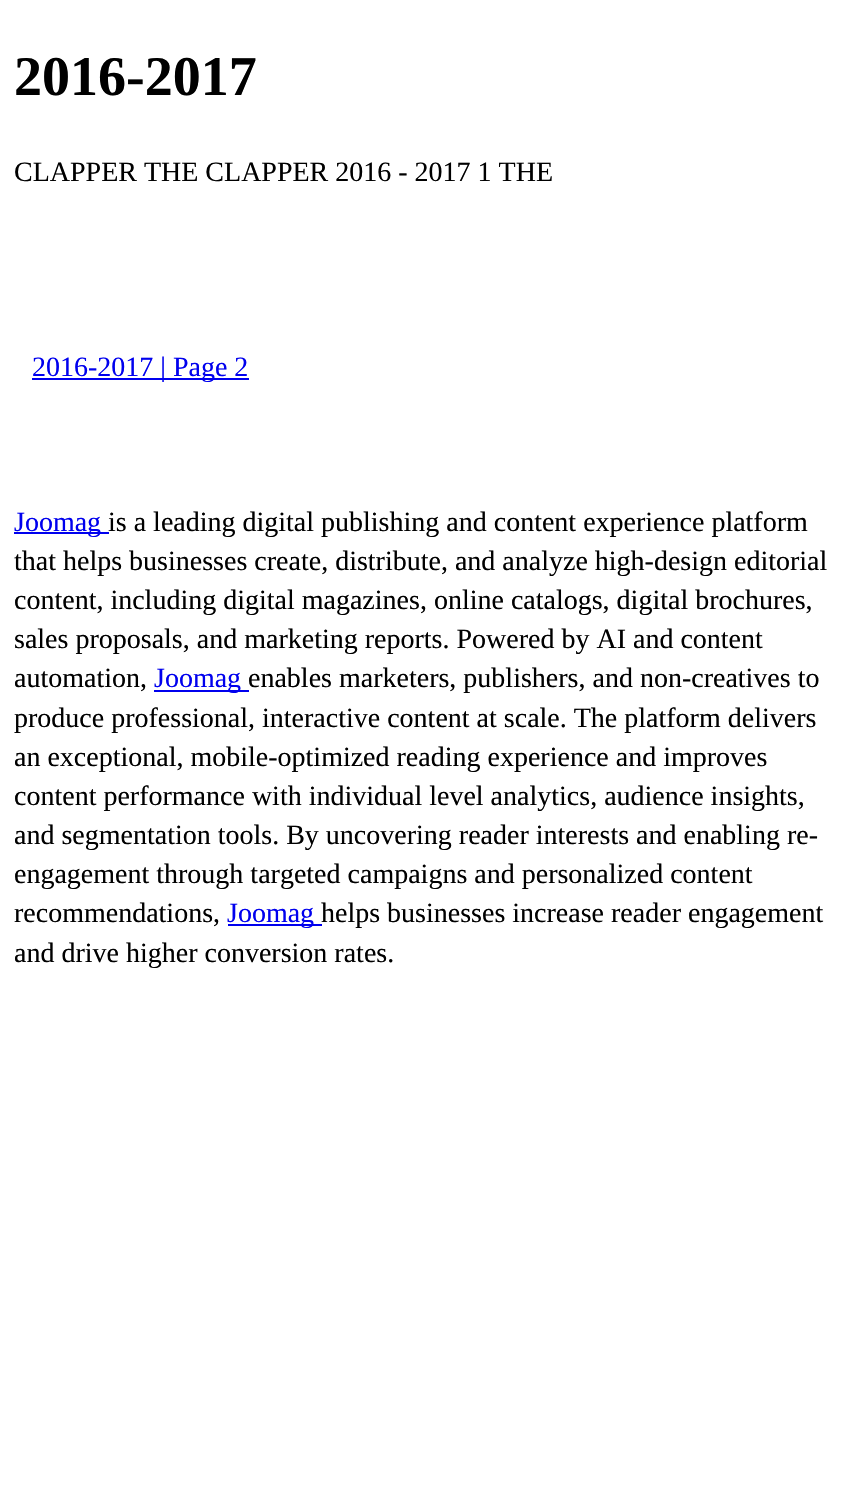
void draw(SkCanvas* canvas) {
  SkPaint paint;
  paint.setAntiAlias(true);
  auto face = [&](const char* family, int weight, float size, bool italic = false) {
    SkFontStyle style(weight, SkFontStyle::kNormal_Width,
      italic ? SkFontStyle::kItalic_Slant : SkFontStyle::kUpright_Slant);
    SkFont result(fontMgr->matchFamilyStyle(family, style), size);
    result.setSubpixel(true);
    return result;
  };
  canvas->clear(0xffffffff);
  {
    const struct { float x, y, w, h; SkColor color; } items[] = {
      {32, 378, 217, 2, 0xff0000ee},
      {14, 532, 95, 2, 0xff0000ee},
      {154, 690, 95, 2, 0xff0000ee},
      {228, 924, 94, 2, 0xff0000ee},
    };
    for (auto [x, y, w, h, color] : items) {
      paint.setColor(color);
      canvas->drawRect(SkRect::MakeXYWH(x, y, w, h), paint);
    }
  }
  auto f0 = face("Liberation Serif", 700, 56);
  paint.setColor(0xff000000);
  canvas->drawString("2016-2017", 14, 95, f0, paint);
  auto f1 = face("Liberation Serif", 400, 28);
  canvas->drawString("CLAPPER THE CLAPPER 2016 - 2017 1 THE", 14, 181, f1, paint);
  paint.setColor(0xff0000ee);
  canvas->drawString("2016-2017 | Page 2", 32, 376, f1, paint);
  canvas->drawString("Joomag", 14, 531, f1, paint);
  paint.setColor(0xff000000);
  {
    const struct { const char* s; float x, y; } items[] = {
      {"is a leading digital publishing and content experience platform", 108, 531},
      {"that helps businesses create, distribute, and analyze high-design editorial", 14, 570},
      {"content, including digital magazines, online catalogs, digital brochures,", 14, 609},
      {"sales proposals, and marketing reports. Powered by AI and content", 14, 648},
      {"automation,", 14, 687},
    };
    for (auto [s, x, y] : items) {
      canvas->drawString(s, x, y, f1, paint);
    }
  }
  paint.setColor(0xff0000ee);
  canvas->drawString("Joomag", 154, 687, f1, paint);
  paint.setColor(0xff000000);
  {
    const struct { const char* s; float x, y; } items[] = {
      {"enables marketers, publishers, and non-creatives to", 248, 687},
      {"produce professional, interactive content at scale. The platform delivers", 14, 727},
      {"an exceptional, mobile-optimized reading experience and improves", 14, 766},
      {"content performance with individual level analytics, audience insights,", 14, 805},
      {"and segmentation tools. By uncovering reader interests and enabling re-", 14, 844},
      {"engagement through targeted campaigns and personalized content", 14, 883},
      {"recommendations,", 14, 922},
    };
    for (auto [s, x, y] : items) {
      canvas->drawString(s, x, y, f1, paint);
    }
  }
  paint.setColor(0xff0000ee);
  canvas->drawString("Joomag", 227, 922, f1, paint);
  paint.setColor(0xff000000);
  canvas->drawString("helps businesses increase reader engagement", 321, 922, f1, paint);
  canvas->drawString("and drive higher conversion rates.", 14, 962, f1, paint);
}
